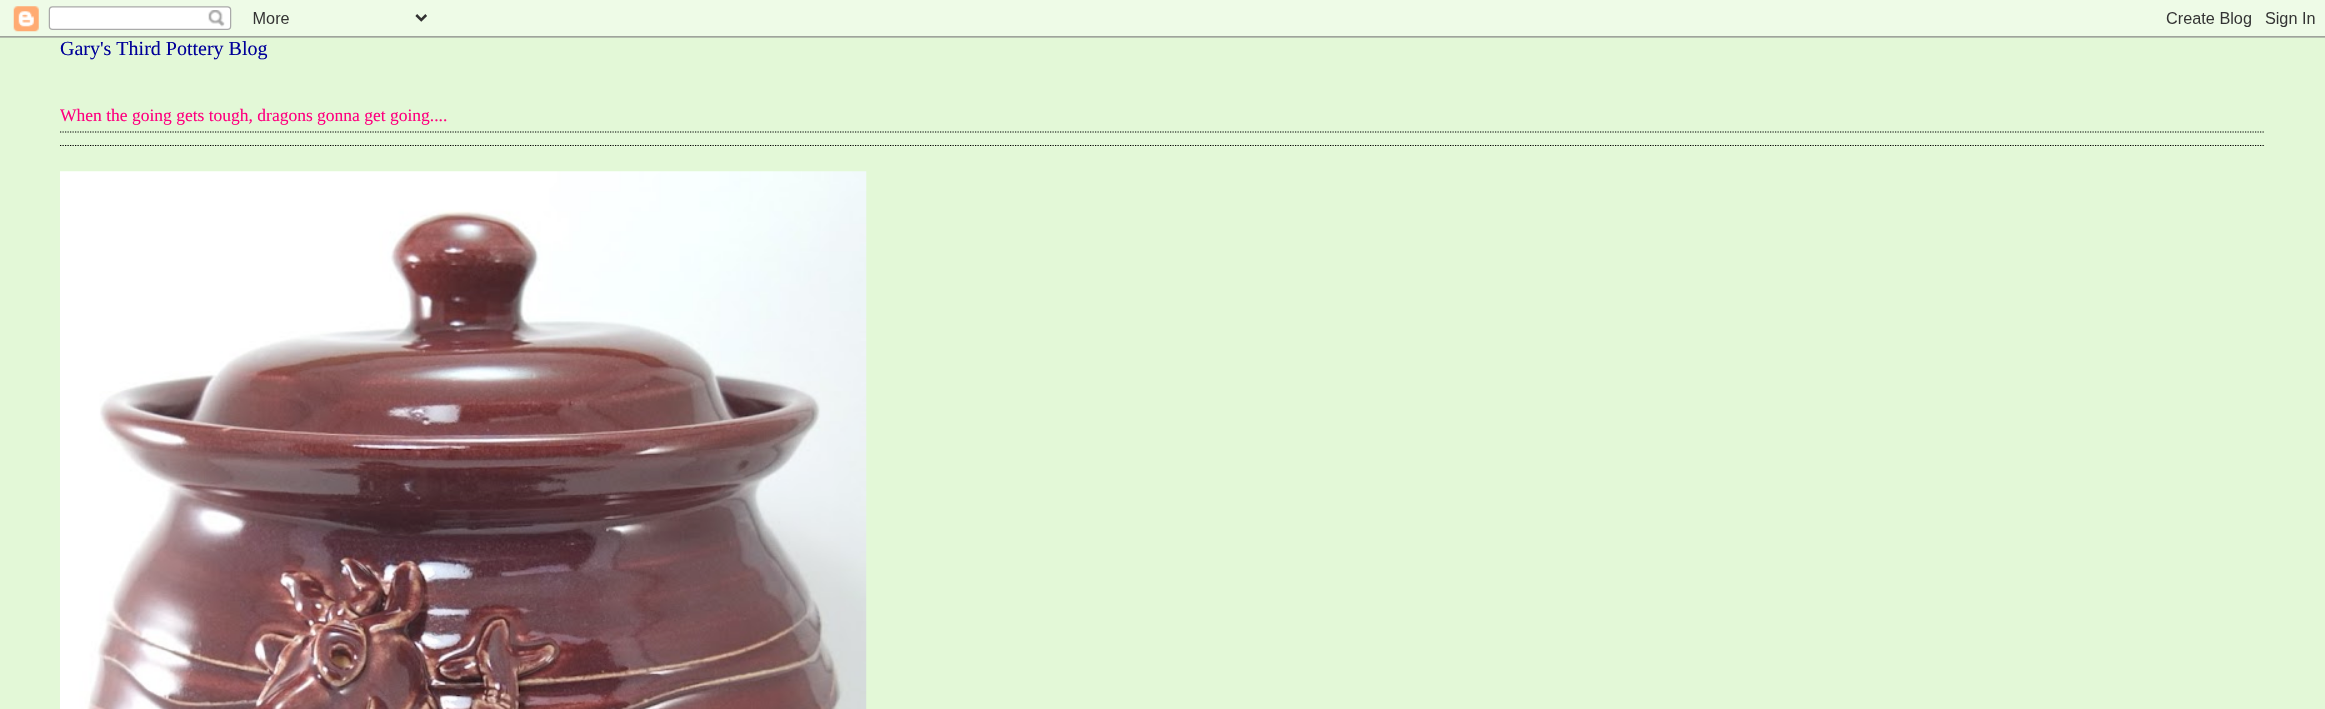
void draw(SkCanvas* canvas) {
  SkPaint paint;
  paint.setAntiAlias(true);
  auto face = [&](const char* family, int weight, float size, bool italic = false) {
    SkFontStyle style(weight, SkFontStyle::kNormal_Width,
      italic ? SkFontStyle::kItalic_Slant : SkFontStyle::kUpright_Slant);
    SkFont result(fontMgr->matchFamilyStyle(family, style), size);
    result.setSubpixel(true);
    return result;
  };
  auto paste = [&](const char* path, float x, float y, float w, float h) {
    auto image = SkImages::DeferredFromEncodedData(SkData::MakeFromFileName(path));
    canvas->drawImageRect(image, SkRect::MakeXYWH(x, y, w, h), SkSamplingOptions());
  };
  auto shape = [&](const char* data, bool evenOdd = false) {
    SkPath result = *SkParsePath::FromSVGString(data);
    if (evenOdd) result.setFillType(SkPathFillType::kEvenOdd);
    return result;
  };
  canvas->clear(0xffe3f8d7);
  paste("img/1.png", 0, 0, 2325, 38);
  paint.setStroke(true);
  paint.setStrokeWidth(1.2f);
  paint.setColor(0xff000000);
  paint.setPathEffect(SkDashPathEffect::Make({{1.25f, 1.25f}}, 0));
  canvas->drawPath(shape("M60 145.5H2265"), paint);
  paint.setPathEffect(nullptr);
  paint.setPathEffect(SkDashPathEffect::Make({{1.25f, 1.25f}}, 0));
  canvas->drawPath(shape("M60 132H2265"), paint);
  paint.setPathEffect(nullptr);
  paste("img/2.png", 60, 171, 807, 538);
  auto f0 = face("Liberation Serif", 400, 20);
  paint.setStroke(false);
  paint.setColor(0xff000099);
  canvas->drawString("Gary's Third Pottery Blog", 60, 55, f0, paint);
  auto f1 = face("Liberation Serif", 400, 17.5f);
  paint.setColor(0xffff007f);
  canvas->drawString("When the going gets tough, dragons gonna get going....", 60, 121, f1, paint);
}
